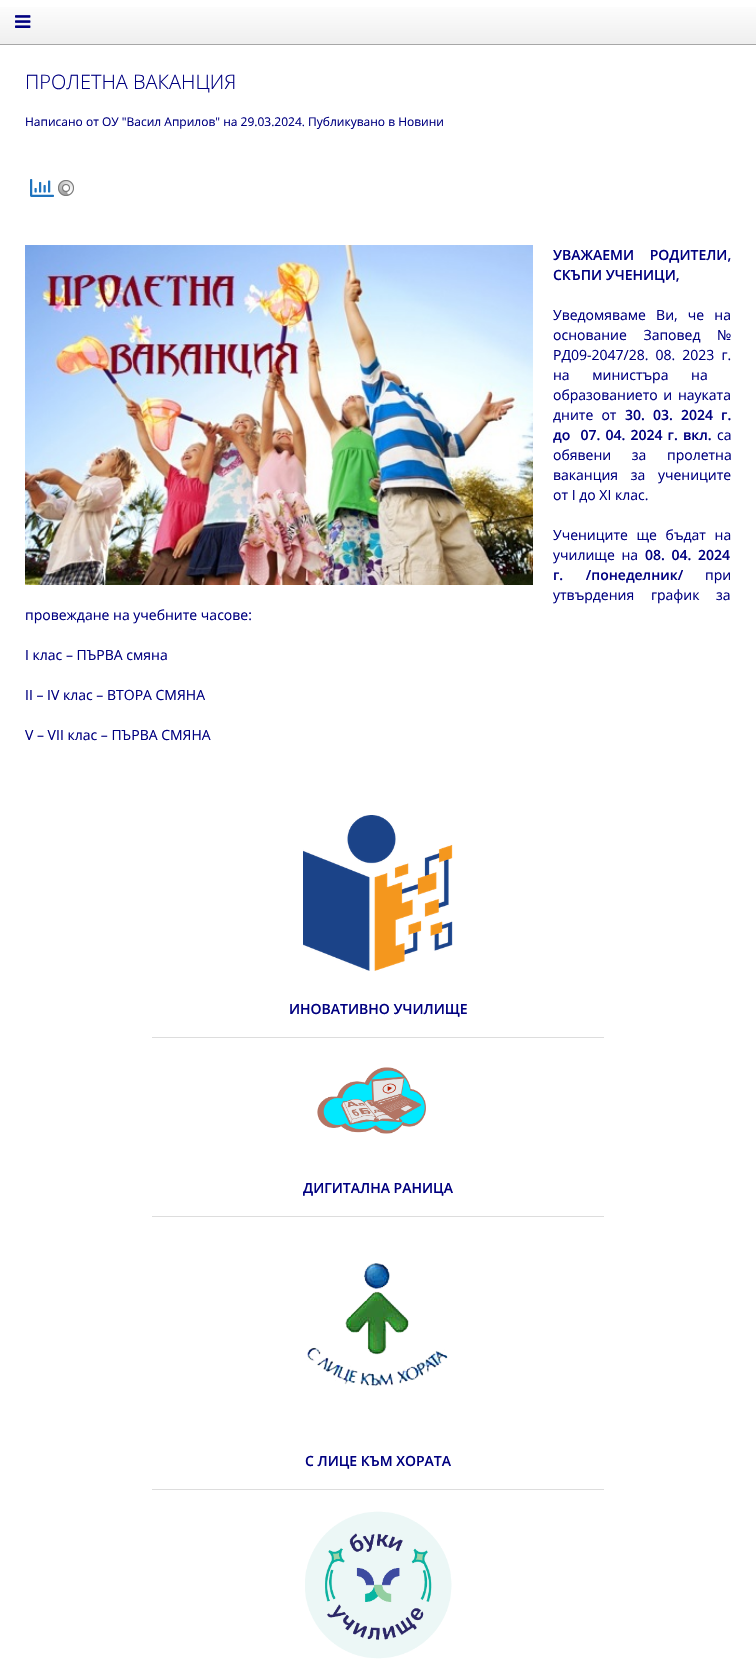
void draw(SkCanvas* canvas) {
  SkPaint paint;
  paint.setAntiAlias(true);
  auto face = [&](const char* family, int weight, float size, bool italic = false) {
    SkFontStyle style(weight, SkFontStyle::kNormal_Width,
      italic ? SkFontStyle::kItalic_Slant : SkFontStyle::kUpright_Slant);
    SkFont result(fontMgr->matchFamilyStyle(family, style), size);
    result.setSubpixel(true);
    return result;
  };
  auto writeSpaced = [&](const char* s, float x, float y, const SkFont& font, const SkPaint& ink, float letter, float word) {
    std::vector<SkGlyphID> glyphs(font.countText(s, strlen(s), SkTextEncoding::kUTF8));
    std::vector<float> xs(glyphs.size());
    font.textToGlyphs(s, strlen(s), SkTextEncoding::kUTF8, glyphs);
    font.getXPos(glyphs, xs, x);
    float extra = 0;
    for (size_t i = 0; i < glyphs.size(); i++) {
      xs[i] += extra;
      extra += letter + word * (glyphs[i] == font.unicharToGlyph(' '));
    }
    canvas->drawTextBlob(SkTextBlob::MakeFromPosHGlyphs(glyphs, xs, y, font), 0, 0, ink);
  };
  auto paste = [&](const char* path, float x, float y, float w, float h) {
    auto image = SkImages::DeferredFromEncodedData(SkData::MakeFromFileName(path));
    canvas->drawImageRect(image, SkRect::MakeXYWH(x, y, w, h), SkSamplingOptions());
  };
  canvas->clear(0xffffffff);
  {
    const SkColor colors[] = {0xffffffff, 0xffeeeeee};
    const float stops[] = {0, 1};
    const SkPoint ends[] = {{378, 0}, {378, 45}};
    paint.setShader(SkGradientShader::MakeLinear(ends, colors, stops, 2, SkTileMode::kClamp));
    paint.setAlpha(255);
  }
  canvas->drawRect(SkRect::MakeXYWH(0, 7, 756, 37), paint);
  paint.setShader(nullptr);
  paint.setColor(0xffa7a7a7);
  canvas->drawRect(SkRect::MakeXYWH(0, 44, 756, 1), paint);
  paste("img/1.png", 15, 15, 16, 13);
  paste("img/2.png", 30, 179, 24, 18);
  paste("img/3.png", 58, 180, 16, 16);
  paste("img/4.png", 25, 245, 508, 340);
  paste("img/5.png", 303, 815, 150, 156);
  paint.setColor(0xffdddddd);
  canvas->drawRect(SkRect::MakeXYWH(152, 1037, 452, 1), paint);
  paste("img/6.png", 317, 1067, 109, 67);
  canvas->drawRect(SkRect::MakeXYWH(152, 1216, 452, 1), paint);
  paste("img/7.png", 307, 1263, 141, 123);
  canvas->drawRect(SkRect::MakeXYWH(152, 1489, 452, 1), paint);
  paste("img/8.png", 305, 1511, 147, 148);
  auto f0 = face("Open Sans", 300, 20);
  paint.setColor(0xff000080);
  canvas->drawString("ПРОЛЕТНА ВАКАНЦИЯ", 25, 89, f0, paint);
  auto f1 = face("Open Sans", 400, 12);
  canvas->drawString("Написано от ОУ \"Васил Априлов\" на 29.03.2024. Публикувано в Новини", 25, 126, f1, paint);
  auto f2 = face("Open Sans", 600, 14);
  writeSpaced("УВАЖАЕМИ РОДИТЕЛИ,", 553, 260, f2, paint, 0, 12);
  canvas->drawString("СКЪПИ УЧЕНИЦИ,", 553, 280, f2, paint);
  auto f3 = face("Open Sans", 400, 14);
  writeSpaced("Уведомяваме Ви, че на", 553, 320, f3, paint, 0, 6.5f);
  writeSpaced("основание Заповед №", 553, 340, f3, paint, 0, 13);
  writeSpaced("РД09-2047/28. 08. 2023 г.", 553, 360, f3, paint, 0, 3.5f);
  writeSpaced("на министъра на", 553, 380, f3, paint, 0, 19);
  writeSpaced("образованието и науката", 553, 400, f3, paint, 0, 2);
  writeSpaced("дните от", 553, 420, f3, paint, 0, 4.5f);
  writeSpaced("30. 03. 2024 г.", 625, 420, f2, paint, 0, 4.5f);
  writeSpaced("до  07. 04. 2024 г. вкл.", 553, 440, f2, paint, 0, 1.5f);
  canvas->drawString("са", 717, 440, f3, paint);
  writeSpaced("обявени за пролетна", 553, 460, f3, paint, 0, 17);
  writeSpaced("ваканция за учениците", 553, 480, f3, paint, 0, 9);
  canvas->drawString("от I до XI клас.", 553, 500, f3, paint);
  writeSpaced("Учениците ще бъдат на", 553, 540, f3, paint, 0, 5);
  writeSpaced("училище на", 553, 560, f3, paint, 0, 3);
  writeSpaced("08. 04. 2024", 645, 560, f2, paint, 0, 3);
  writeSpaced("г. /понеделник/", 553, 580, f2, paint, 0, 19);
  canvas->drawString("при", 705, 580, f3, paint);
  writeSpaced("утвърдения график за", 553, 600, f3, paint, 0, 13);
  {
    const struct { const char* s; float x, y; } items[] = {
      {"провеждане на учебните часове:", 25, 620},
      {"I клас – ПЪРВА смяна", 25, 660},
      {"II – IV клас – ВТОРА СМЯНА", 25, 700},
      {"V – VII клас – ПЪРВА СМЯНА", 25, 740},
    };
    for (auto [s, x, y] : items) {
      canvas->drawString(s, x, y, f3, paint);
    }
  }
  {
    const struct { const char* s; float x, y; } items[] = {
      {"ИНОВАТИВНО УЧИЛИЩЕ", 289, 1014},
      {"ДИГИТАЛНА РАНИЦА", 303, 1193},
      {"С ЛИЦЕ КЪМ ХОРАТА", 305, 1466},
    };
    for (auto [s, x, y] : items) {
      canvas->drawString(s, x, y, f2, paint);
    }
  }
}
